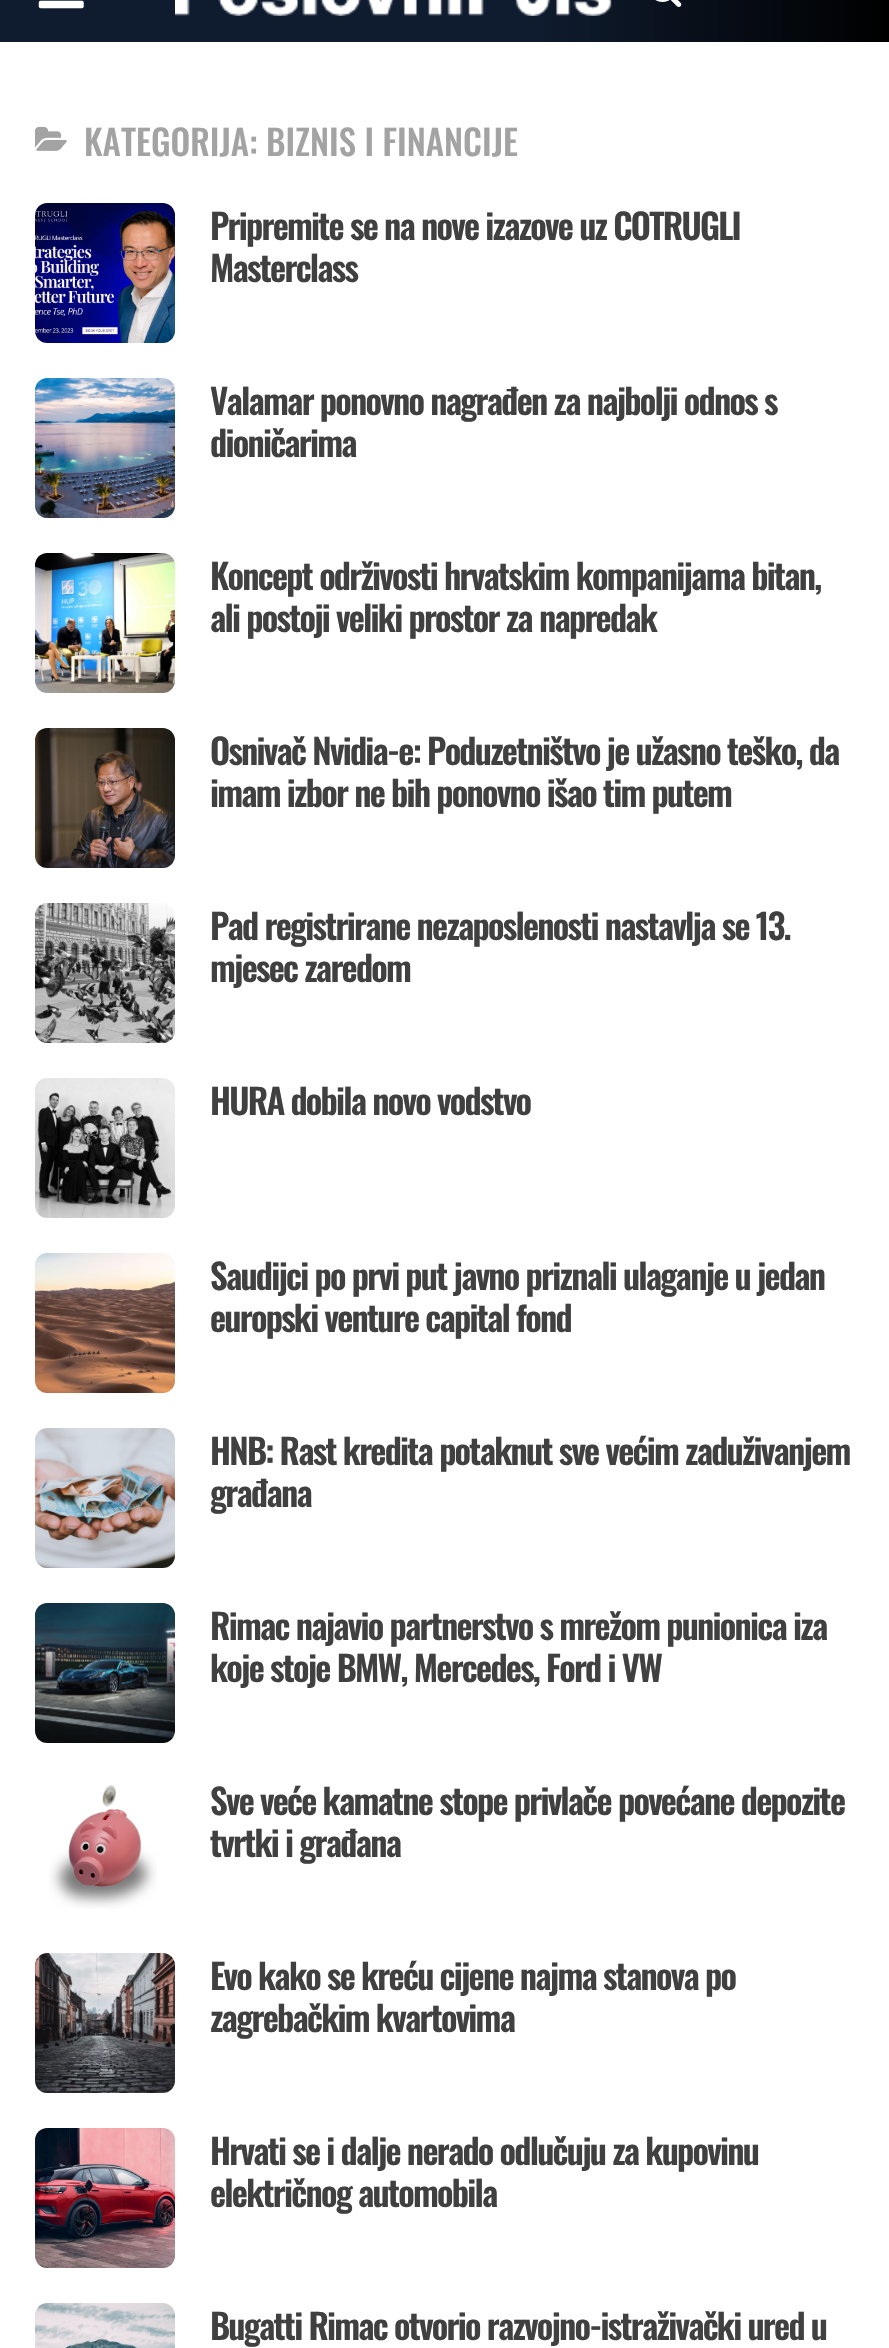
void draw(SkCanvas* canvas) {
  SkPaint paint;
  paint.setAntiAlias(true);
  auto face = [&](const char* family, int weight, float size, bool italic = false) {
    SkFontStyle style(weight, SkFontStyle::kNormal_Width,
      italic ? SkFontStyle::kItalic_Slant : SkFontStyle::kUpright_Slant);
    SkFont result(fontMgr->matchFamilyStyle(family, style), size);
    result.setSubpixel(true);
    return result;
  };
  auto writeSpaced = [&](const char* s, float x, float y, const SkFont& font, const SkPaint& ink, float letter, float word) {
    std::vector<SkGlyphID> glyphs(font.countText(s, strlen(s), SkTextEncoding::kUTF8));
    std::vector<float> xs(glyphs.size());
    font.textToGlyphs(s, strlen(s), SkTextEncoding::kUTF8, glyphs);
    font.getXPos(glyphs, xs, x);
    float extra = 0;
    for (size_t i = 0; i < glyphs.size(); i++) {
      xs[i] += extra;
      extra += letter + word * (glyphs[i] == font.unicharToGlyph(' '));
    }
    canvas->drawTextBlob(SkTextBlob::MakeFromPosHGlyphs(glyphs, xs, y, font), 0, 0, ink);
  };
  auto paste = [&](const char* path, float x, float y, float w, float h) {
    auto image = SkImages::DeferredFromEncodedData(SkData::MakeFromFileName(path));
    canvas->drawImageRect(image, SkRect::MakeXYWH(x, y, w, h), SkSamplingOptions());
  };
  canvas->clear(0xffffffff);
  {
    const SkColor colors[] = {0xff0f1c2f, 0xff000000};
    const float stops[] = {0.6f, 1};
    const SkPoint ends[] = {{0, -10}, {889, -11}};
    paint.setShader(SkGradientShader::MakeLinear(ends, colors, stops, 2, SkTileMode::kClamp));
    paint.setAlpha(255);
  }
  canvas->drawRect(SkRect::MakeXYWH(0, 0, 889, 42), paint);
  paste("img/1.png", 38, 0, 46, 9);
  paste("img/2.png", 175, 0, 437, 16);
  paste("img/3.png", 655, 0, 27, 7);
  paste("img/4.png", 35, 126, 32, 25);
  paste("img/5.png", 34, 203, 142, 140);
  paste("img/6.png", 35, 378, 140, 140);
  paste("img/7.png", 34, 553, 141, 140);
  paste("img/8.png", 35, 728, 140, 140);
  paste("img/9.png", 35, 903, 140, 140);
  paste("img/10.png", 35, 1078, 140, 140);
  paste("img/11.png", 35, 1253, 140, 140);
  paste("img/12.png", 35, 1428, 140, 140);
  paste("img/13.png", 34, 1603, 142, 140);
  paste("img/14.png", 49, 1785, 108, 124);
  paste("img/15.png", 34, 1953, 142, 140);
  paste("img/16.png", 34, 2128, 141, 140);
  paste("img/17.png", 35, 2303, 140, 45);
  auto f0 = face("Oswald", 500, 35);
  paint.setShader(nullptr);
  paint.setColor(0xffa3a3a3);
  canvas->drawString("KATEGORIJA: BIZNIS I FINANCIJE", 84, 156, f0, paint);
  auto f1 = face("Oswald", 600, 35);
  paint.setColor(0xff404040);
  {
    const struct { const char* s; float x, y; } items[] = {
      {"Pripremite se na nove izazove uz COTRUGLI", 210, 240},
      {"Masterclass", 210, 282},
      {"Valamar ponovno nagrađen za najbolji odnos s", 210, 415},
      {"dioničarima", 210, 457},
      {"Koncept održivosti hrvatskim kompanijama bitan,", 210, 590},
      {"ali postoji veliki prostor za napredak", 210, 632},
      {"Osnivač Nvidia-e: Poduzetništvo je užasno teško, da", 210, 765},
      {"imam izbor ne bih ponovno išao tim putem", 210, 807},
      {"Pad registrirane nezaposlenosti nastavlja se 13.", 210, 940},
      {"mjesec zaredom", 210, 982},
      {"HURA dobila novo vodstvo", 210, 1115},
      {"Saudijci po prvi put javno priznali ulaganje u jedan", 210, 1290},
      {"europski venture capital fond", 210, 1332},
      {"HNB: Rast kredita potaknut sve većim zaduživanjem", 210, 1465},
      {"građana", 210, 1507},
      {"Rimac najavio partnerstvo s mrežom punionica iza", 210, 1640},
      {"koje stoje BMW, Mercedes, Ford i VW", 210, 1682},
      {"Sve veće kamatne stope privlače povećane depozite", 210, 1815},
      {"tvrtki i građana", 210, 1857},
      {"Evo kako se kreću cijene najma stanova po", 210, 1990},
      {"zagrebačkim kvartovima", 210, 2032},
      {"Hrvati se i dalje nerado odlučuju za kupovinu", 210, 2165},
      {"električnog automobila", 210, 2207},
      {"Bugatti Rimac otvorio razvojno-istraživački ured u", 210, 2340},
    };
    for (auto [s, x, y] : items) {
      writeSpaced(s, x, y, f1, paint, -1.75f, 0);
    }
  }
}
